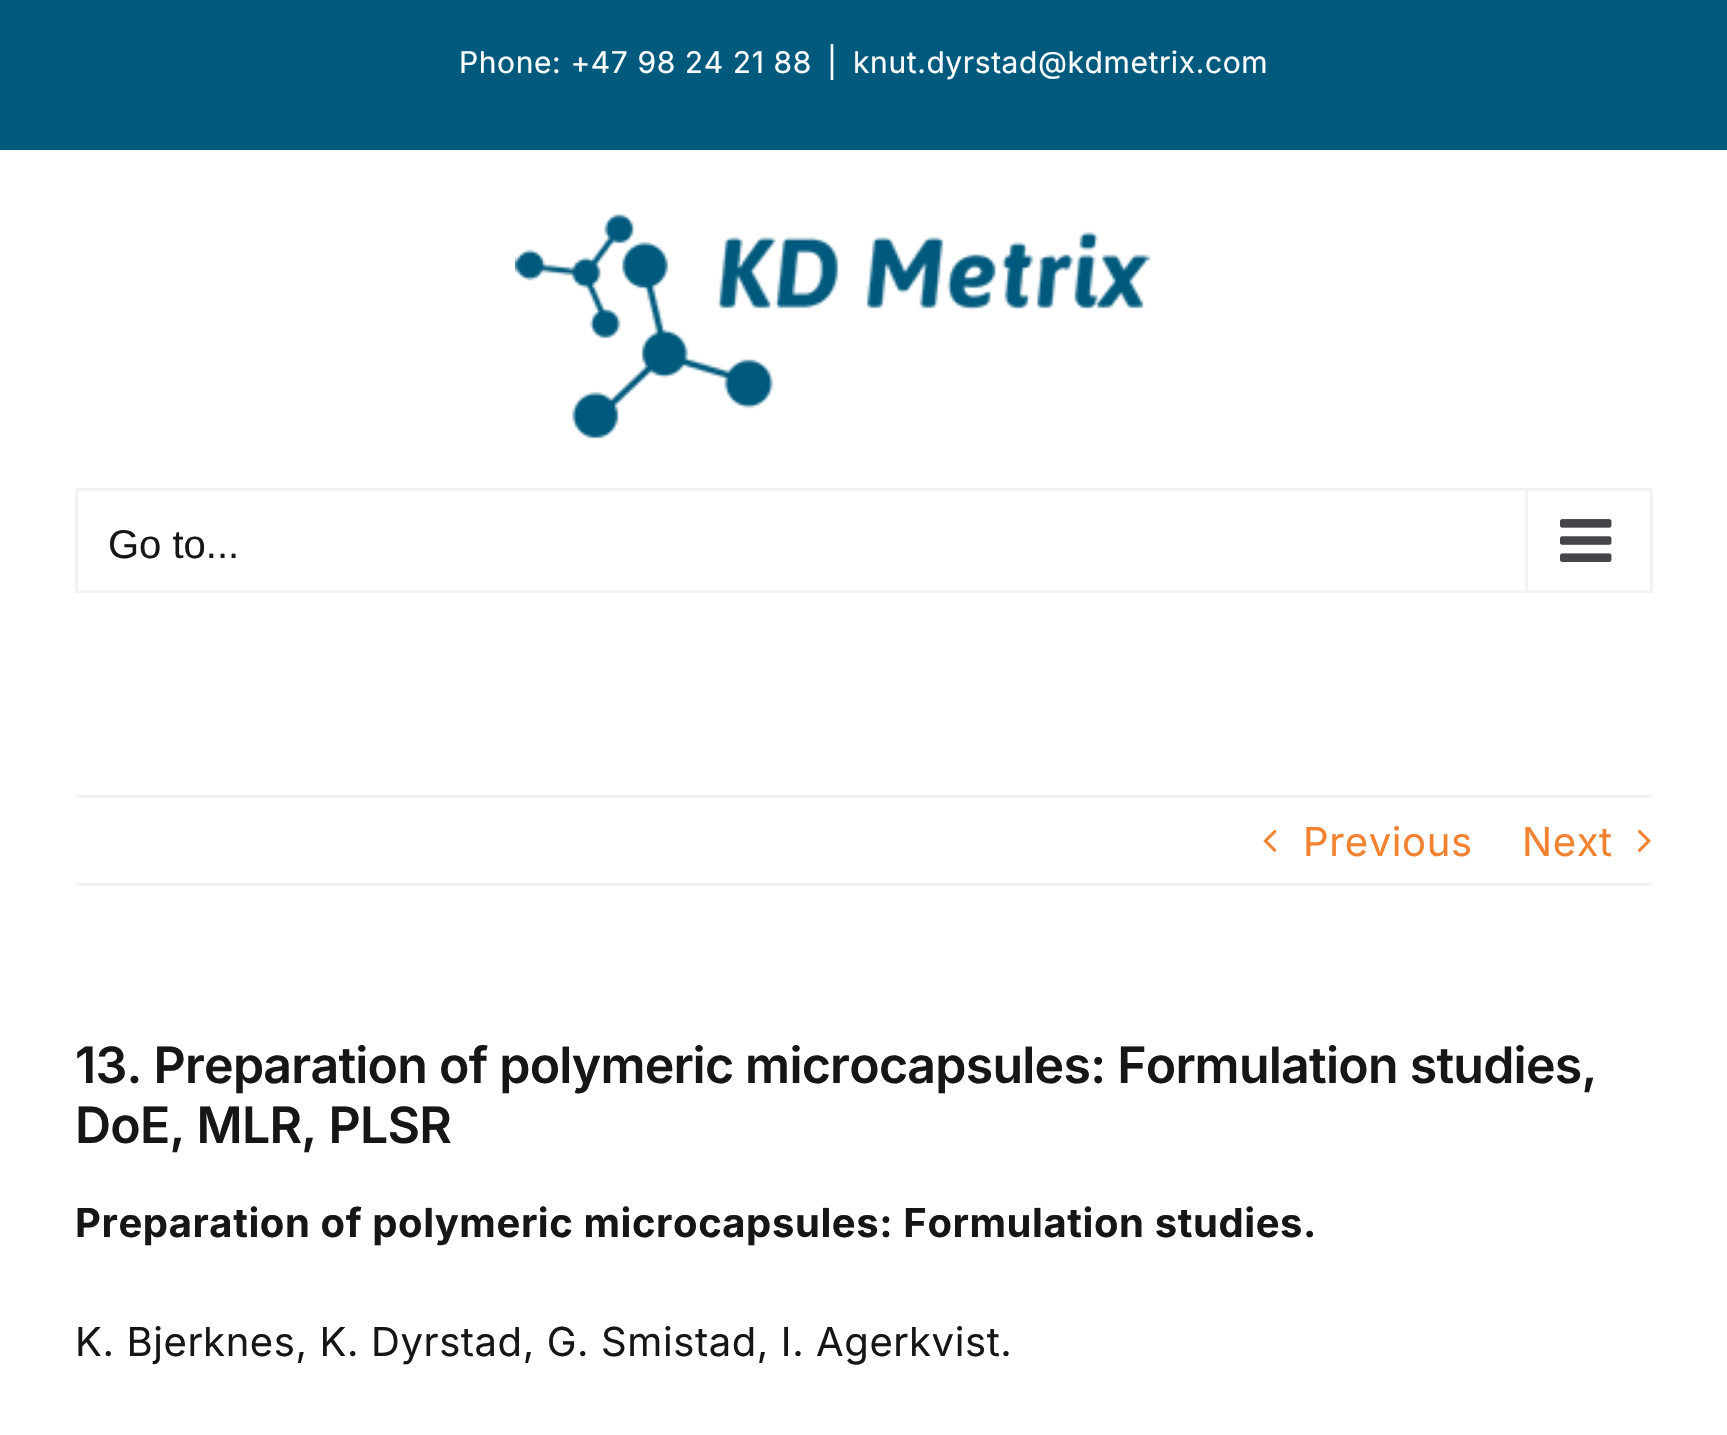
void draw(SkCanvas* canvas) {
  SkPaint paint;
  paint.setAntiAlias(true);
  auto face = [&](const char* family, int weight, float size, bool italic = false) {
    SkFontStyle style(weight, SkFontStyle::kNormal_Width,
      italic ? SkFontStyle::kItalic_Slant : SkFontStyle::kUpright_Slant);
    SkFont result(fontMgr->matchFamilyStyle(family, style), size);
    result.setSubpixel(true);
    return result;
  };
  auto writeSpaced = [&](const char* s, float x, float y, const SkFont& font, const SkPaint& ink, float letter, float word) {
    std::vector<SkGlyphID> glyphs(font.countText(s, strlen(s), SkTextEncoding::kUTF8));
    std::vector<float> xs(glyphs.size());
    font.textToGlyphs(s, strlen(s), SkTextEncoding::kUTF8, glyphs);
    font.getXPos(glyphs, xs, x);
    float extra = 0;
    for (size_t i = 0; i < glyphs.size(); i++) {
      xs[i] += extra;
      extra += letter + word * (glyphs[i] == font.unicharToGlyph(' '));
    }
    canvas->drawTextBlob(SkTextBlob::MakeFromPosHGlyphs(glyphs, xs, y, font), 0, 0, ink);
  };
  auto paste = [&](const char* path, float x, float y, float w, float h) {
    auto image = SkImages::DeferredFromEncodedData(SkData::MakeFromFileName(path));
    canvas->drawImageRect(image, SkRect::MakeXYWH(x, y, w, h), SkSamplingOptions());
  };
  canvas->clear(0xffffffff);
  paint.setColor(0xff005a7d);
  canvas->drawRect(SkRect::MakeXYWH(0, 0, 1727, 150), paint);
  paste("img/1.png", 515, 214, 636, 225);
  paint.setStroke(true);
  paint.setStrokeWidth(3);
  paint.setColor(0xfff2f3f5);
  canvas->drawRect(SkRect::MakeXYWH(76.5f, 489.5f, 1575, 102), paint);
  paint.setStroke(false);
  canvas->drawRect(SkRect::MakeXYWH(1525, 490, 3, 100), paint);
  paste("img/2.png", 1560, 519, 52, 43);
  canvas->drawRect(SkRect::MakeXYWH(75, 795, 1578, 3), paint);
  canvas->drawRect(SkRect::MakeXYWH(75, 883, 1578, 3), paint);
  paste("img/3.png", 1263, 829, 14, 23);
  paste("img/4.png", 1637, 829, 14, 23);
  auto f0 = face("Inter", 400, 30);
  paint.setColor(0xffffffff);
  {
    const struct { const char* s; float x, y; } items[] = {
      {"Phone: +47 98 24 21 88", 459, 73},
      {"|", 827, 73},
      {"knut.dyrstad@kdmetrix.com", 853, 73},
    };
    for (auto [s, x, y] : items) {
      writeSpaced(s, x, y, f0, paint, 0.6f, 0);
    }
  }
  auto f1 = face("Liberation Sans", 400, 40);
  paint.setColor(0xff141617);
  canvas->drawString("Go to...", 108, 558, f1, paint);
  auto f2 = face("Inter", 400, 40);
  paint.setColor(0xfff28130);
  writeSpaced("Previous", 1303, 856, f2, paint, 0.6f, 0);
  writeSpaced("Next", 1522, 856, f2, paint, 0.6f, 0);
  auto f3 = face("Inter", 600, 50);
  paint.setColor(0xff141617);
  writeSpaced("13. Preparation of polymeric microcapsules: Formulation studies,", 75, 1083, f3, paint, -0.75f, 0);
  writeSpaced("DoE, MLR, PLSR", 75, 1143, f3, paint, -0.75f, 0);
  auto f4 = face("Inter", 700, 40);
  writeSpaced("Preparation of polymeric microcapsules: Formulation studies.", 75, 1237, f4, paint, 0.6f, 0);
  writeSpaced("K. Bjerknes, K. Dyrstad, G. Smistad, I. Agerkvist.", 75, 1356, f2, paint, 0.6f, 0);
}
